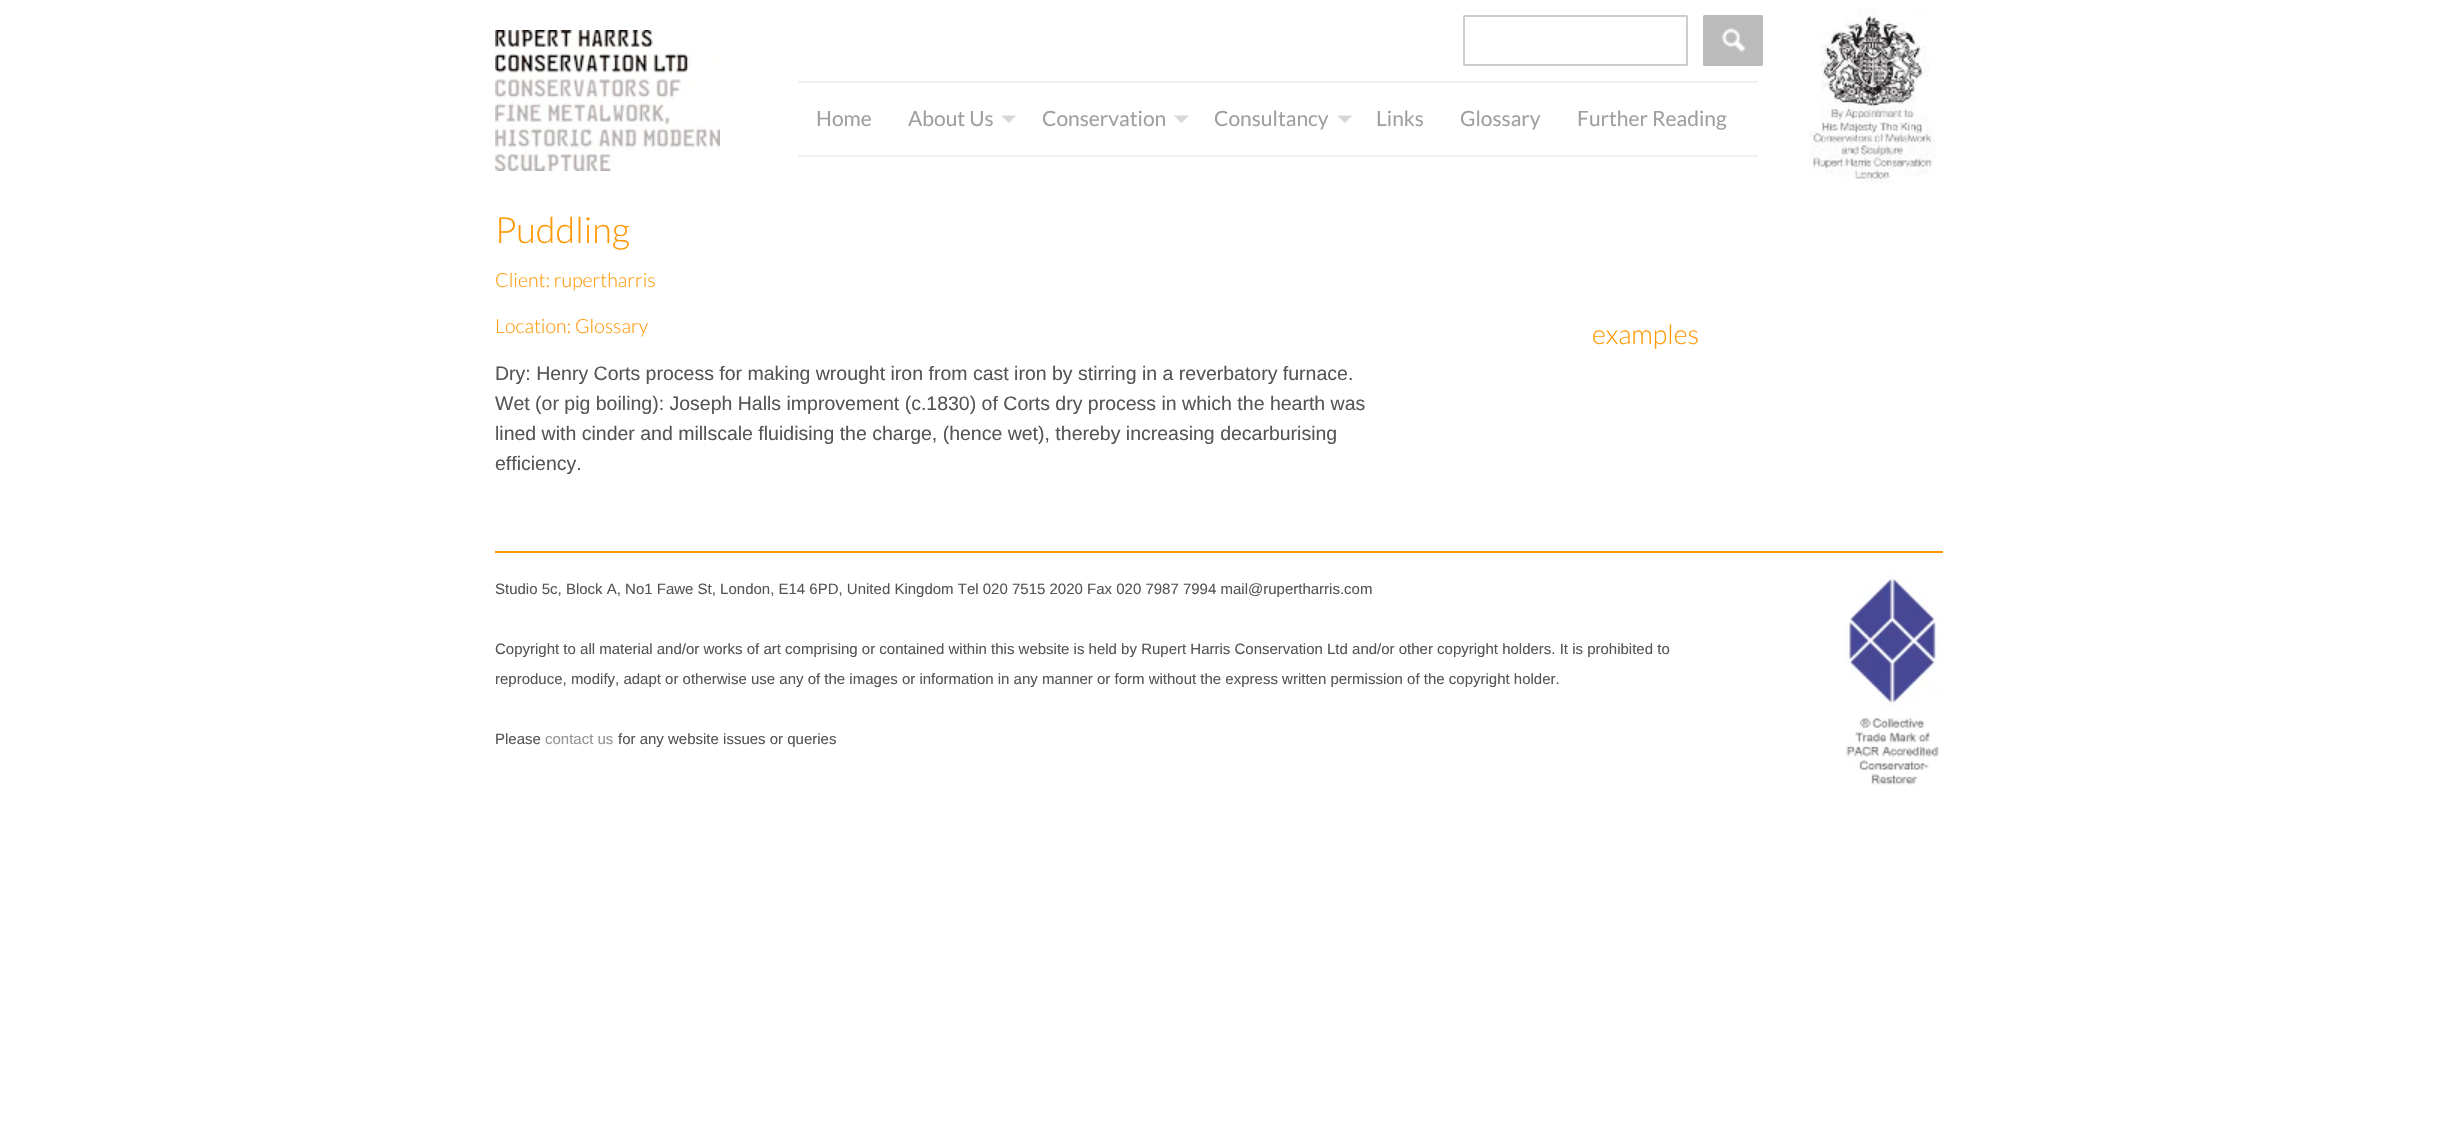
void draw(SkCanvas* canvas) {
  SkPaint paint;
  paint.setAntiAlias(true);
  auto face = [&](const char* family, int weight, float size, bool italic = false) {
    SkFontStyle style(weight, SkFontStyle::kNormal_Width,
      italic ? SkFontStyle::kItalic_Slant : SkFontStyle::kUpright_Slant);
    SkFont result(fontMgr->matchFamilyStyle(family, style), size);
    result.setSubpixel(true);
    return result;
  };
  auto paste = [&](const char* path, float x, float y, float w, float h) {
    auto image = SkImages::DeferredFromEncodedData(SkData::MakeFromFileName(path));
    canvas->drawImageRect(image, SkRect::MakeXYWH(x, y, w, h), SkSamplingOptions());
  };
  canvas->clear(0xffffffff);
  paste("img/1.png", 495, 30, 225, 141);
  paint.setStroke(true);
  paint.setStrokeWidth(2);
  paint.setColor(0xffcccccc);
  canvas->drawRoundRect(SkRect::MakeXYWH(1464, 16, 223, 49), 0.5f, 0.5f, paint);
  paint.setStroke(false);
  paint.setColor(0xffbbbbbb);
  canvas->drawRoundRect(SkRect::MakeXYWH(1703, 15, 60, 51), 1.5f, 1.5f, paint);
  paste("img/2.png", 1721, 28, 25, 25);
  paint.setColor(0xfff0f0f0);
  canvas->drawRect(SkRect::MakeXYWH(798, 81, 960, 2), paint);
  canvas->drawRect(SkRect::MakeXYWH(798, 155, 960, 2), paint);
  paste("img/3.png", 1001, 115, 15, 9);
  paste("img/4.png", 1174, 115, 15, 9);
  paste("img/5.png", 1337, 115, 15, 9);
  paste("img/6.png", 1809, 7, 128, 178);
  paint.setColor(0xffff9806);
  canvas->drawRect(SkRect::MakeXYWH(495, 551, 1448, 2), paint);
  paste("img/7.png", 1845, 574, 94, 211);
  auto f0 = face("Lato", 400, 21);
  paint.setColor(0xff9f9f9f);
  {
    const struct { const char* s; float x, y; } items[] = {
      {"Home", 816, 126},
      {"About Us", 908, 126},
      {"Conservation", 1042, 126},
      {"Consultancy", 1214, 126},
      {"Links", 1376, 126},
      {"Glossary", 1460, 126},
      {"Further Reading", 1577, 126},
    };
    for (auto [s, x, y] : items) {
      canvas->drawString(s, x, y, f0, paint);
    }
  }
  auto f1 = face("Lato", 300, 36);
  paint.setColor(0xffff9806);
  canvas->drawString("Puddling", 495, 243, f1, paint);
  auto f2 = face("Lato", 300, 19.5f);
  canvas->drawString("Client: rupertharris", 495, 287, f2, paint);
  canvas->drawString("Location: Glossary", 495, 333, f2, paint);
  auto f3 = face("Liberation Sans", 400, 19.5f);
  paint.setColor(0xff555555);
  {
    const struct { const char* s; float x, y; } items[] = {
      {"Dry: Henry Corts process for making wrought iron from cast iron by stirring in a reverbatory furnace.", 495, 380},
      {"Wet (or pig boiling): Joseph Halls improvement (c.1830) of Corts dry process in which the hearth was", 495, 410},
      {"lined with cinder and millscale fluidising the charge, (hence wet), thereby increasing decarburising", 495, 440},
      {"efficiency.", 495, 470},
    };
    for (auto [s, x, y] : items) {
      canvas->drawString(s, x, y, f3, paint);
    }
  }
  auto f4 = face("Lato", 300, 27);
  paint.setColor(0xffff9806);
  canvas->drawString("examples", 1592, 344, f4, paint);
  auto f5 = face("Liberation Sans", 400, 15);
  paint.setColor(0xff555555);
  {
    const struct { const char* s; float x, y; } items[] = {
      {"Studio 5c, Block A, No1 Fawe St, London, E14 6PD, United Kingdom Tel 020 7515 2020 Fax 020 7987 7994 mail@rupertharris.com", 495, 594},
      {"Copyright to all material and/or works of art comprising or contained within this website is held by Rupert Harris Conservation Ltd and/or other copyright holders. It is prohibited to", 495, 654},
      {"reproduce, modify, adapt or otherwise use any of the images or information in any manner or form without the express written permission of the copyright holder.", 495, 684},
      {"Please", 495, 744},
    };
    for (auto [s, x, y] : items) {
      canvas->drawString(s, x, y, f5, paint);
    }
  }
  paint.setColor(0xff949494);
  canvas->drawString("contact us", 545, 744, f5, paint);
  paint.setColor(0xff555555);
  canvas->drawString("for any website issues or queries", 618, 744, f5, paint);
}
